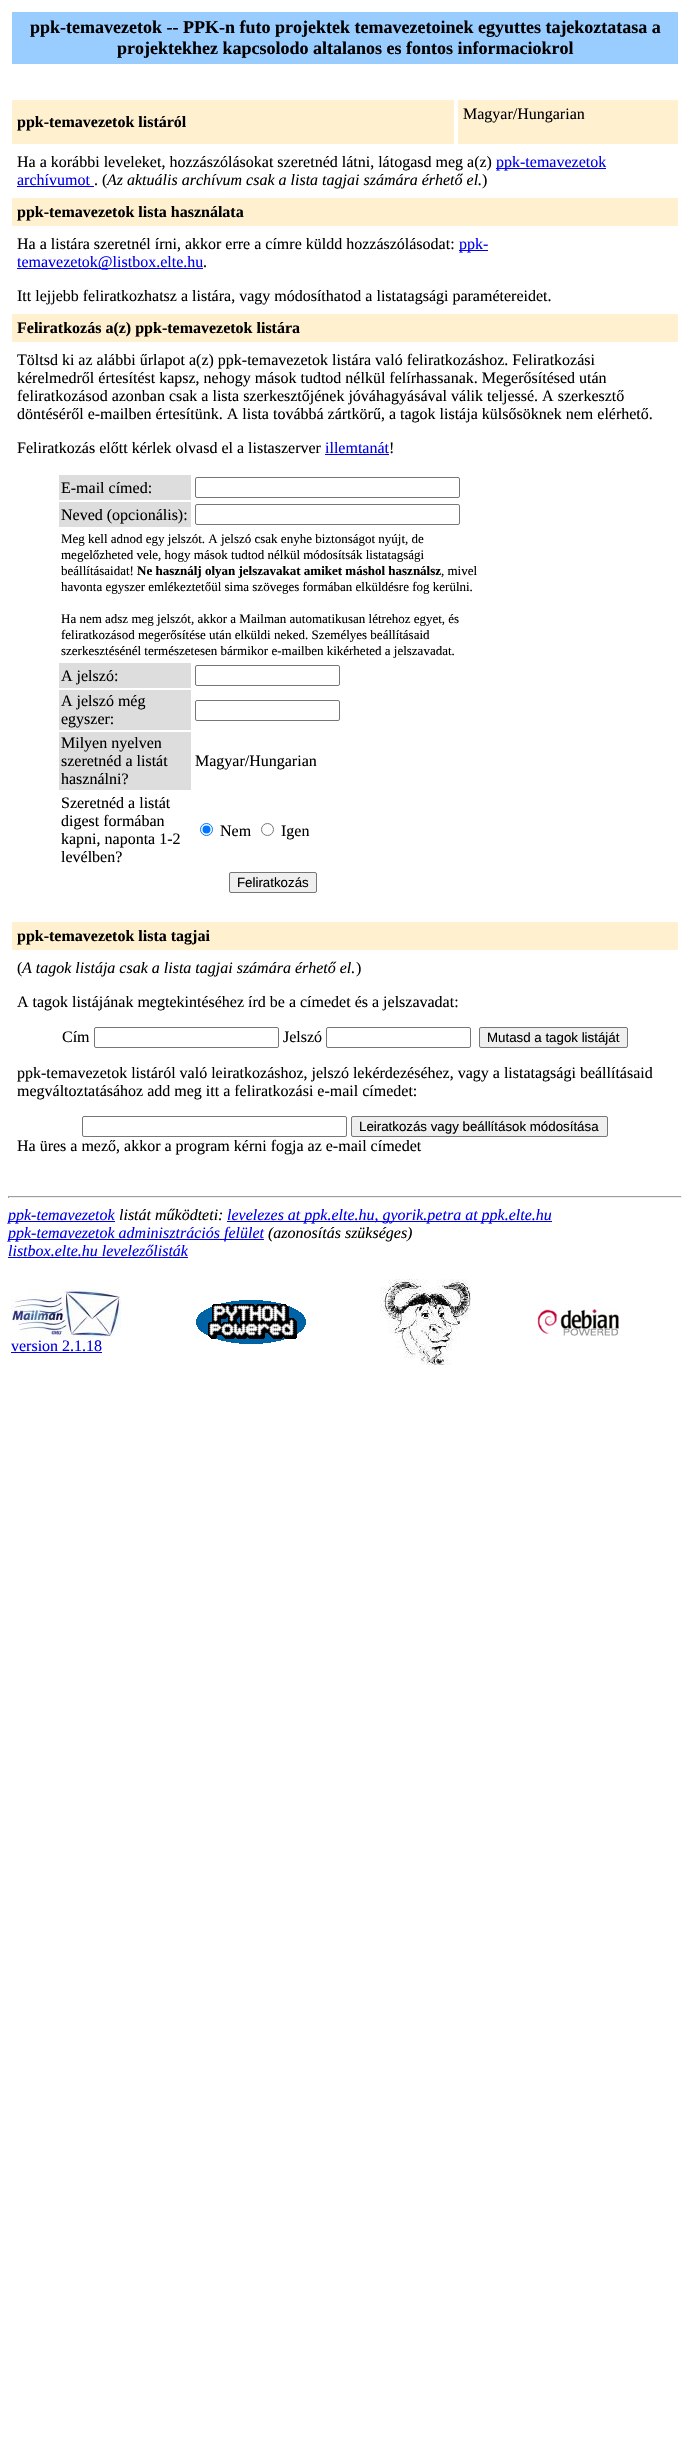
void draw(SkCanvas* canvas) {
  SkPaint paint;
  paint.setAntiAlias(true);
  auto face = [&](const char* family, int weight, float size, bool italic = false) {
    SkFontStyle style(weight, SkFontStyle::kNormal_Width,
      italic ? SkFontStyle::kItalic_Slant : SkFontStyle::kUpright_Slant);
    SkFont result(fontMgr->matchFamilyStyle(family, style), size);
    result.setSubpixel(true);
    return result;
  };
  auto paste = [&](const char* path, float x, float y, float w, float h) {
    auto image = SkImages::DeferredFromEncodedData(SkData::MakeFromFileName(path));
    canvas->drawImageRect(image, SkRect::MakeXYWH(x, y, w, h), SkSamplingOptions());
  };
  canvas->clear(0xffffffff);
  {
    const struct { float x, y, w, h; SkColor color; } items[] = {
      {12, 12, 666, 52, 0xff99ccff},
      {12, 100, 442, 44, 0xfffff0d0},
      {458, 100, 220, 44, 0xfffff0d0},
      {496, 168, 110, 1, 0xff0000ee},
      {17, 186, 77, 1, 0xff0000ee},
      {12, 198, 666, 28, 0xfffff0d0},
      {459, 250, 29, 1, 0xff0000ee},
      {17, 268, 186, 1, 0xff0000ee},
      {12, 314, 666, 28, 0xfffff0d0},
      {325, 454, 64, 1, 0xff0000ee},
      {59, 475, 132, 25, 0xffdddddd},
    };
    for (auto [x, y, w, h, color] : items) {
      paint.setColor(color);
      canvas->drawRect(SkRect::MakeXYWH(x, y, w, h), paint);
    }
  }
  paint.setStroke(true);
  paint.setStrokeWidth(1);
  paint.setColor(0xff767676);
  canvas->drawRoundRect(SkRect::MakeXYWH(195.5f, 477.5f, 264, 20), 1.5f, 1.5f, paint);
  paint.setStroke(false);
  paint.setColor(0xffdddddd);
  canvas->drawRect(SkRect::MakeXYWH(59, 502, 132, 25), paint);
  paint.setStroke(true);
  paint.setColor(0xff767676);
  canvas->drawRoundRect(SkRect::MakeXYWH(195.5f, 504.5f, 264, 20), 1.5f, 1.5f, paint);
  paint.setStroke(false);
  paint.setColor(0xffdddddd);
  canvas->drawRect(SkRect::MakeXYWH(59, 663, 132, 25), paint);
  paint.setStroke(true);
  paint.setColor(0xff767676);
  canvas->drawRoundRect(SkRect::MakeXYWH(195.5f, 665.5f, 144, 20), 1.5f, 1.5f, paint);
  paint.setStroke(false);
  paint.setColor(0xffdddddd);
  canvas->drawRect(SkRect::MakeXYWH(59, 690, 132, 40), paint);
  paint.setStroke(true);
  paint.setColor(0xff767676);
  canvas->drawRoundRect(SkRect::MakeXYWH(195.5f, 700.5f, 144, 20), 1.5f, 1.5f, paint);
  paint.setStroke(false);
  paint.setColor(0xffdddddd);
  canvas->drawRect(SkRect::MakeXYWH(59, 732, 132, 58), paint);
  paint.setStroke(true);
  paint.setColor(0xff0075ff);
  canvas->drawCircle(206.5f, 829.5f, 6, paint);
  paint.setStroke(false);
  canvas->drawCircle(206.5f, 829.5f, 4, paint);
  paint.setStroke(true);
  paint.setColor(0xff767676);
  canvas->drawCircle(267.5f, 829.5f, 6, paint);
  paint.setStroke(false);
  paint.setColor(0xffefefef);
  canvas->drawRoundRect(SkRect::MakeXYWH(229.5f, 872.5f, 87, 20), 1.5f, 1.5f, paint);
  paint.setStroke(true);
  paint.setColor(0xff767676);
  canvas->drawRoundRect(SkRect::MakeXYWH(229.5f, 872.5f, 87, 20), 1.5f, 1.5f, paint);
  paint.setStroke(false);
  paint.setColor(0xfffff0d0);
  canvas->drawRect(SkRect::MakeXYWH(12, 922, 666, 28), paint);
  paint.setStroke(true);
  paint.setColor(0xff767676);
  canvas->drawRoundRect(SkRect::MakeXYWH(94.5f, 1027.5f, 184, 20), 1.5f, 1.5f, paint);
  canvas->drawRoundRect(SkRect::MakeXYWH(326.5f, 1027.5f, 144, 20), 1.5f, 1.5f, paint);
  paint.setStroke(false);
  paint.setColor(0xffefefef);
  canvas->drawRoundRect(SkRect::MakeXYWH(479.5f, 1027.5f, 148, 20), 1.5f, 1.5f, paint);
  paint.setStroke(true);
  paint.setColor(0xff767676);
  canvas->drawRoundRect(SkRect::MakeXYWH(479.5f, 1027.5f, 148, 20), 1.5f, 1.5f, paint);
  canvas->drawRoundRect(SkRect::MakeXYWH(82.5f, 1116.5f, 264, 20), 1.5f, 1.5f, paint);
  paint.setStroke(false);
  paint.setColor(0xffefefef);
  canvas->drawRoundRect(SkRect::MakeXYWH(351.5f, 1116.5f, 256, 20), 1.5f, 1.5f, paint);
  paint.setStroke(true);
  paint.setColor(0xff767676);
  canvas->drawRoundRect(SkRect::MakeXYWH(351.5f, 1116.5f, 256, 20), 1.5f, 1.5f, paint);
  paint.setStroke(false);
  {
    const struct { float x, y, w, h; SkColor color; } items[] = {
      {8, 1196, 674, 1, 0xff9f9f9f},
      {681, 1196, 1, 2, 0xffeeeeee},
      {8, 1197, 674, 1, 0xffeeeeee},
      {8, 1196, 1, 2, 0xff9f9f9f},
      {8, 1221, 107, 1, 0xff0000ee},
      {227, 1221, 325, 1, 0xff0000ee},
      {8, 1239, 256, 1, 0xff0000ee},
      {8, 1257, 180, 1, 0xff0000ee},
    };
    for (auto [x, y, w, h, color] : items) {
      paint.setColor(color);
      canvas->drawRect(SkRect::MakeXYWH(x, y, w, h), paint);
    }
  }
  paste("img/1.png", 196, 1300, 110, 44);
  paste("img/2.png", 380, 1279, 91, 86);
  paste("img/3.png", 537, 1309, 83, 27);
  paste("img/4.png", 11, 1289, 110, 48);
  canvas->drawRect(SkRect::MakeXYWH(11, 1352, 91, 1), paint);
  auto f0 = face("Liberation Serif", 700, 18);
  paint.setColor(0xff000000);
  canvas->drawString("ppk-temavezetok -- PPK-n futo projektek temavezetoinek egyuttes tajekoztatasa a", 30, 33, f0, paint);
  canvas->drawString("projektekhez kapcsolodo altalanos es fontos informaciokrol", 117, 54, f0, paint);
  auto f1 = face("Liberation Serif", 700, 16);
  canvas->drawString("ppk-temavezetok listáról", 17, 127, f1, paint);
  auto f2 = face("Liberation Serif", 400, 16);
  canvas->drawString("Magyar/Hungarian", 463, 119, f2, paint);
  canvas->drawString("Ha a korábbi leveleket, hozzászólásokat szeretnéd látni, látogasd meg a(z)", 17, 167, f2, paint);
  paint.setColor(0xff0000ee);
  canvas->drawString("ppk-temavezetok", 496, 167, f2, paint);
  canvas->drawString("archívumot", 17, 185, f2, paint);
  paint.setColor(0xff000000);
  canvas->drawString(". (", 94, 185, f2, paint);
  auto f3 = face("Liberation Serif", 400, 16, true);
  canvas->drawString("Az aktuális archívum csak a lista tagjai számára érhető el.", 107, 185, f3, paint);
  canvas->drawString(")", 482, 185, f2, paint);
  canvas->drawString("ppk-temavezetok lista használata", 17, 217, f1, paint);
  canvas->drawString("Ha a listára szeretnél írni, akkor erre a címre küldd hozzászólásodat:", 17, 249, f2, paint);
  paint.setColor(0xff0000ee);
  canvas->drawString("ppk-", 459, 249, f2, paint);
  canvas->drawString("temavezetok@listbox.elte.hu", 17, 267, f2, paint);
  paint.setColor(0xff000000);
  canvas->drawString(".", 203, 267, f2, paint);
  canvas->drawString("Itt lejjebb feliratkozhatsz a listára, vagy módosíthatod a listatagsági paramétereidet.", 17, 301, f2, paint);
  canvas->drawString("Feliratkozás a(z) ppk-temavezetok listára", 17, 333, f1, paint);
  {
    const struct { const char* s; float x, y; } items[] = {
      {"Töltsd ki az alábbi űrlapot a(z) ppk-temavezetok listára való feliratkozáshoz. Feliratkozási", 17, 365},
      {"kérelmedről értesítést kapsz, nehogy mások tudtod nélkül felírhassanak. Megerősítésed után", 17, 383},
      {"feliratkozásod azonban csak a lista szerkesztőjének jóváhagyásával válik teljessé. A szerkesztő", 17, 401},
      {"döntéséről e-mailben értesítünk. A lista továbbá zártkörű, a tagok listája külsősöknek nem elérhető.", 17, 419},
      {"Feliratkozás előtt kérlek olvasd el a listaszerver", 17, 453},
    };
    for (auto [s, x, y] : items) {
      canvas->drawString(s, x, y, f2, paint);
    }
  }
  paint.setColor(0xff0000ee);
  canvas->drawString("illemtanát", 325, 453, f2, paint);
  paint.setColor(0xff000000);
  {
    const struct { const char* s; float x, y; } items[] = {
      {"!", 389, 453},
      {"E-mail címed:", 61, 493},
      {"Neved (opcionális):", 61, 520},
    };
    for (auto [s, x, y] : items) {
      canvas->drawString(s, x, y, f2, paint);
    }
  }
  auto f4 = face("Liberation Serif", 400, 13);
  {
    const struct { const char* s; float x, y; } items[] = {
      {"Meg kell adnod egy jelszót. A jelszó csak enyhe biztonságot nyújt, de", 61, 543},
      {"megelőzheted vele, hogy mások tudtod nélkül módosítsák listatagsági", 61, 559},
      {"beállításaidat!", 61, 575},
    };
    for (auto [s, x, y] : items) {
      canvas->drawString(s, x, y, f4, paint);
    }
  }
  auto f5 = face("Liberation Serif", 700, 13);
  canvas->drawString("Ne használj olyan jelszavakat amiket máshol használsz", 137, 575, f5, paint);
  {
    const struct { const char* s; float x, y; } items[] = {
      {", mivel", 441, 575},
      {"havonta egyszer emlékeztetőül sima szöveges formában elküldésre fog kerülni.", 61, 591},
      {"Ha nem adsz meg jelszót, akkor a Mailman automatikusan létrehoz egyet, és", 61, 623},
      {"feliratkozásod megerősítése után elküldi neked. Személyes beállításaid", 61, 639},
      {"szerkesztésénél természetesen bármikor e-mailben kikérheted a jelszavadat.", 61, 655},
    };
    for (auto [s, x, y] : items) {
      canvas->drawString(s, x, y, f4, paint);
    }
  }
  {
    const struct { const char* s; float x, y; } items[] = {
      {"A jelszó:", 61, 681},
      {"A jelszó még", 61, 706},
      {"egyszer:", 61, 724},
      {"Milyen nyelven", 61, 748},
      {"szeretnéd a listát", 61, 766},
      {"használni?", 61, 784},
      {"Magyar/Hungarian", 195, 766},
      {"Szeretnéd a listát", 61, 808},
      {"digest formában", 61, 826},
      {"kapni, naponta 1-2", 61, 844},
      {"levélben?", 61, 862},
      {"Nem", 220, 836},
      {"Igen", 281, 836},
    };
    for (auto [s, x, y] : items) {
      canvas->drawString(s, x, y, f2, paint);
    }
  }
  auto f6 = face("Liberation Sans", 400, 13.3f);
  canvas->drawString("Feliratkozás", 237, 887, f6, paint);
  canvas->drawString("ppk-temavezetok lista tagjai", 17, 941, f1, paint);
  canvas->drawString("(", 17, 973, f2, paint);
  canvas->drawString("A tagok listája csak a lista tagjai számára érhető el.", 22, 973, f3, paint);
  {
    const struct { const char* s; float x, y; } items[] = {
      {")", 356, 973},
      {"A tagok listájának megtekintéséhez írd be a címedet és a jelszavadat:", 17, 1007},
      {"Cím", 62, 1042},
      {"Jelszó", 283, 1042},
    };
    for (auto [s, x, y] : items) {
      canvas->drawString(s, x, y, f2, paint);
    }
  }
  canvas->drawString("Mutasd a tagok listáját", 487, 1042, f6, paint);
  canvas->drawString("ppk-temavezetok listáról való leiratkozáshoz, jelszó lekérdezéséhez, vagy a listatagsági beállításaid", 17, 1078, f2, paint);
  canvas->drawString("megváltoztatásához add meg itt a feliratkozási e-mail címedet:", 17, 1096, f2, paint);
  canvas->drawString("Leiratkozás vagy beállítások módosítása", 359, 1131, f6, paint);
  canvas->drawString("Ha üres a mező, akkor a program kérni fogja az e-mail címedet", 17, 1151, f2, paint);
  paint.setColor(0xff0000ee);
  canvas->drawString("ppk-temavezetok", 8, 1220, f3, paint);
  paint.setColor(0xff000000);
  canvas->drawString("listát működteti:", 119, 1220, f3, paint);
  paint.setColor(0xff0000ee);
  canvas->drawString("levelezes at ppk.elte.hu, gyorik.petra at ppk.elte.hu", 227, 1220, f3, paint);
  canvas->drawString("ppk-temavezetok adminisztrációs felület", 8, 1238, f3, paint);
  paint.setColor(0xff000000);
  canvas->drawString("(azonosítás szükséges)", 268, 1238, f3, paint);
  paint.setColor(0xff0000ee);
  canvas->drawString("listbox.elte.hu levelezőlisták", 8, 1256, f3, paint);
  canvas->drawString("version 2.1.18", 11, 1351, f2, paint);
}
